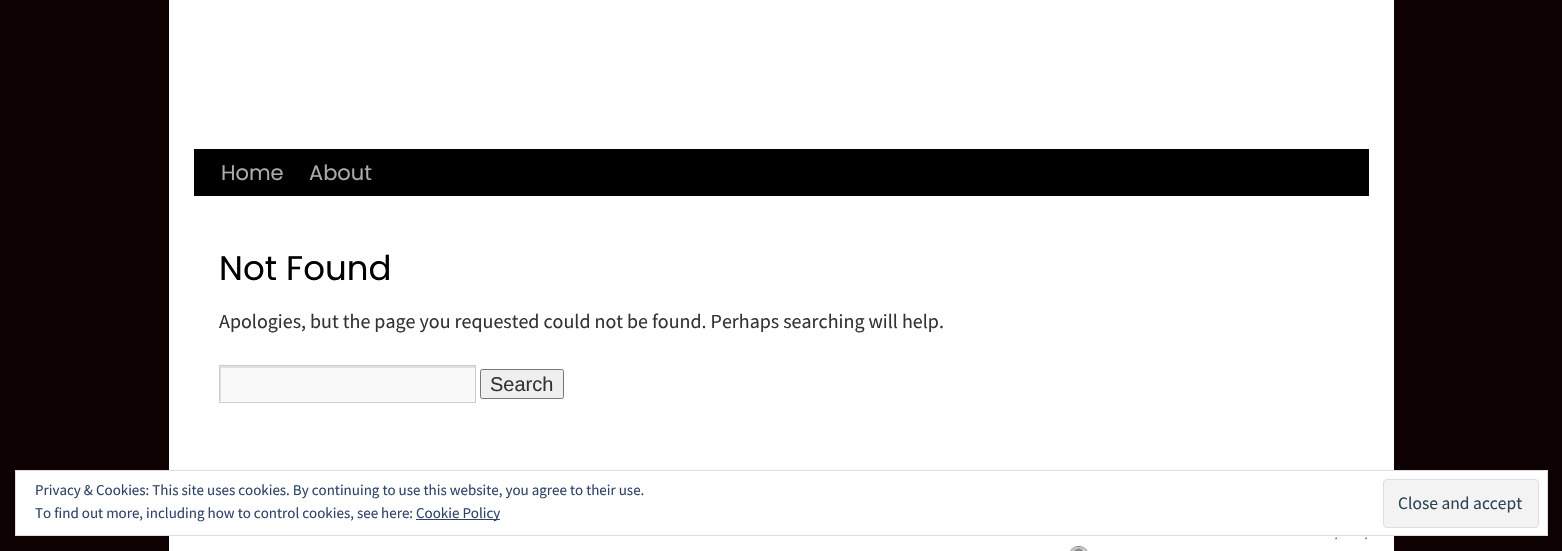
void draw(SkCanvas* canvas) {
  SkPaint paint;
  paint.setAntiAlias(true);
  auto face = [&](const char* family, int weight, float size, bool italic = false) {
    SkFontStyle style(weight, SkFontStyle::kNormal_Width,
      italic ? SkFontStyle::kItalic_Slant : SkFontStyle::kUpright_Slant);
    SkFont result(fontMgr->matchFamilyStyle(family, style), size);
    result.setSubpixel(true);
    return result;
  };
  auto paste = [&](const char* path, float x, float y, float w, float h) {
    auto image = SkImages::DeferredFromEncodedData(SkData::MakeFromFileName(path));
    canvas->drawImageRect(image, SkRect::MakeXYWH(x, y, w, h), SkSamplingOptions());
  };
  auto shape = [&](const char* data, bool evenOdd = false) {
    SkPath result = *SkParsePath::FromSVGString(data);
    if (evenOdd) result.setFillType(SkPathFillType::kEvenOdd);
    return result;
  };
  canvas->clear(0xff0e0101);
  {
    const struct { float x, y, w, h; SkColor color; } items[] = {
      {169, 0, 1225, 551, 0xffffffff},
      {194, 149, 1175, 47, 0xff000000},
      {220, 368, 255, 34, 0xfff9f9f9},
    };
    for (auto [x, y, w, h, color] : items) {
      paint.setColor(color);
      canvas->drawRect(SkRect::MakeXYWH(x, y, w, h), paint);
    }
  }
  canvas->save();
  canvas->clipRect(SkRect::MakeXYWH(220, 366, 255, 35));
  paint.setColor(0xffe0e0e0);
  canvas->drawPath(shape("M96 242H599V525H96ZM221 368H476V402H221Z", true), paint);
  canvas->restore();
  paint.setStroke(true);
  paint.setStrokeWidth(1);
  paint.setColor(0xffcccccc);
  canvas->drawRect(SkRect::MakeXYWH(219.5f, 365.5f, 256, 37), paint);
  paint.setStroke(false);
  paint.setColor(0xffefefef);
  canvas->drawRoundRect(SkRect::MakeXYWH(480.5f, 369.5f, 83, 29), 2, 2, paint);
  paint.setStroke(true);
  paint.setColor(0xff767676);
  canvas->drawRoundRect(SkRect::MakeXYWH(480.5f, 369.5f, 83, 29), 2, 2, paint);
  paste("img/1.png", 1069, 546, 19, 5);
  paint.setStroke(false);
  paint.setColor(0xffffffff);
  canvas->drawRect(SkRect::MakeXYWH(15.5f, 470.5f, 1532, 65), paint);
  paint.setStroke(true);
  paint.setColor(0xffdedede);
  canvas->drawRect(SkRect::MakeXYWH(15.5f, 470.5f, 1532, 65), paint);
  paint.setStroke(false);
  paint.setColor(0xfff3f3f3);
  canvas->drawRoundRect(SkRect::MakeXYWH(1383.5f, 479.5f, 155, 48), 3.5f, 3.5f, paint);
  paint.setStroke(true);
  paint.setColor(0xffdedede);
  canvas->drawRoundRect(SkRect::MakeXYWH(1383.5f, 479.5f, 155, 48), 3.5f, 3.5f, paint);
  paint.setStroke(false);
  paint.setColor(0xff2e4467);
  canvas->drawRect(SkRect::MakeXYWH(416, 519, 84, 1), paint);
  auto f0 = face("Poppins", 400, 21);
  paint.setColor(0xffaaaaaa);
  canvas->drawString("Home", 221, 180, f0, paint);
  canvas->drawString("About", 309, 180, f0, paint);
  auto f1 = face("Poppins", 400, 34);
  paint.setColor(0xff000000);
  canvas->drawString("Not Found", 219, 280, f1, paint);
  auto f2 = face("Source Sans Pro", 400, 20);
  paint.setColor(0xff333333);
  canvas->drawString("Apologies, but the page you requested could not be found. Perhaps searching will help.", 219, 328, f2, paint);
  auto f3 = face("Liberation Sans", 400, 20);
  canvas->drawString("Search", 490, 391, f3, paint);
  auto f4 = face("Source Sans Pro", 400, 15, true);
  paint.setColor(0xff666666);
  canvas->drawString(".", 1335, 539, f4, paint);
  canvas->drawString(".", 1365, 539, f4, paint);
  auto f5 = face("Source Sans Pro", 400, 15);
  paint.setColor(0xff2e4467);
  canvas->drawString("Privacy & Cookies: This site uses cookies. By continuing to use this website, you agree to their use.", 35, 495, f5, paint);
  auto f6 = face("Source Sans Pro", 400, 17.5f);
  paint.setColor(0xff2e4453);
  canvas->drawString("Close and accept", 1398, 509, f6, paint);
  paint.setColor(0xff2e4467);
  canvas->drawString("To find out more, including how to control cookies, see here:", 35, 518, f5, paint);
  canvas->drawString("Cookie Policy", 416, 518, f5, paint);
}
